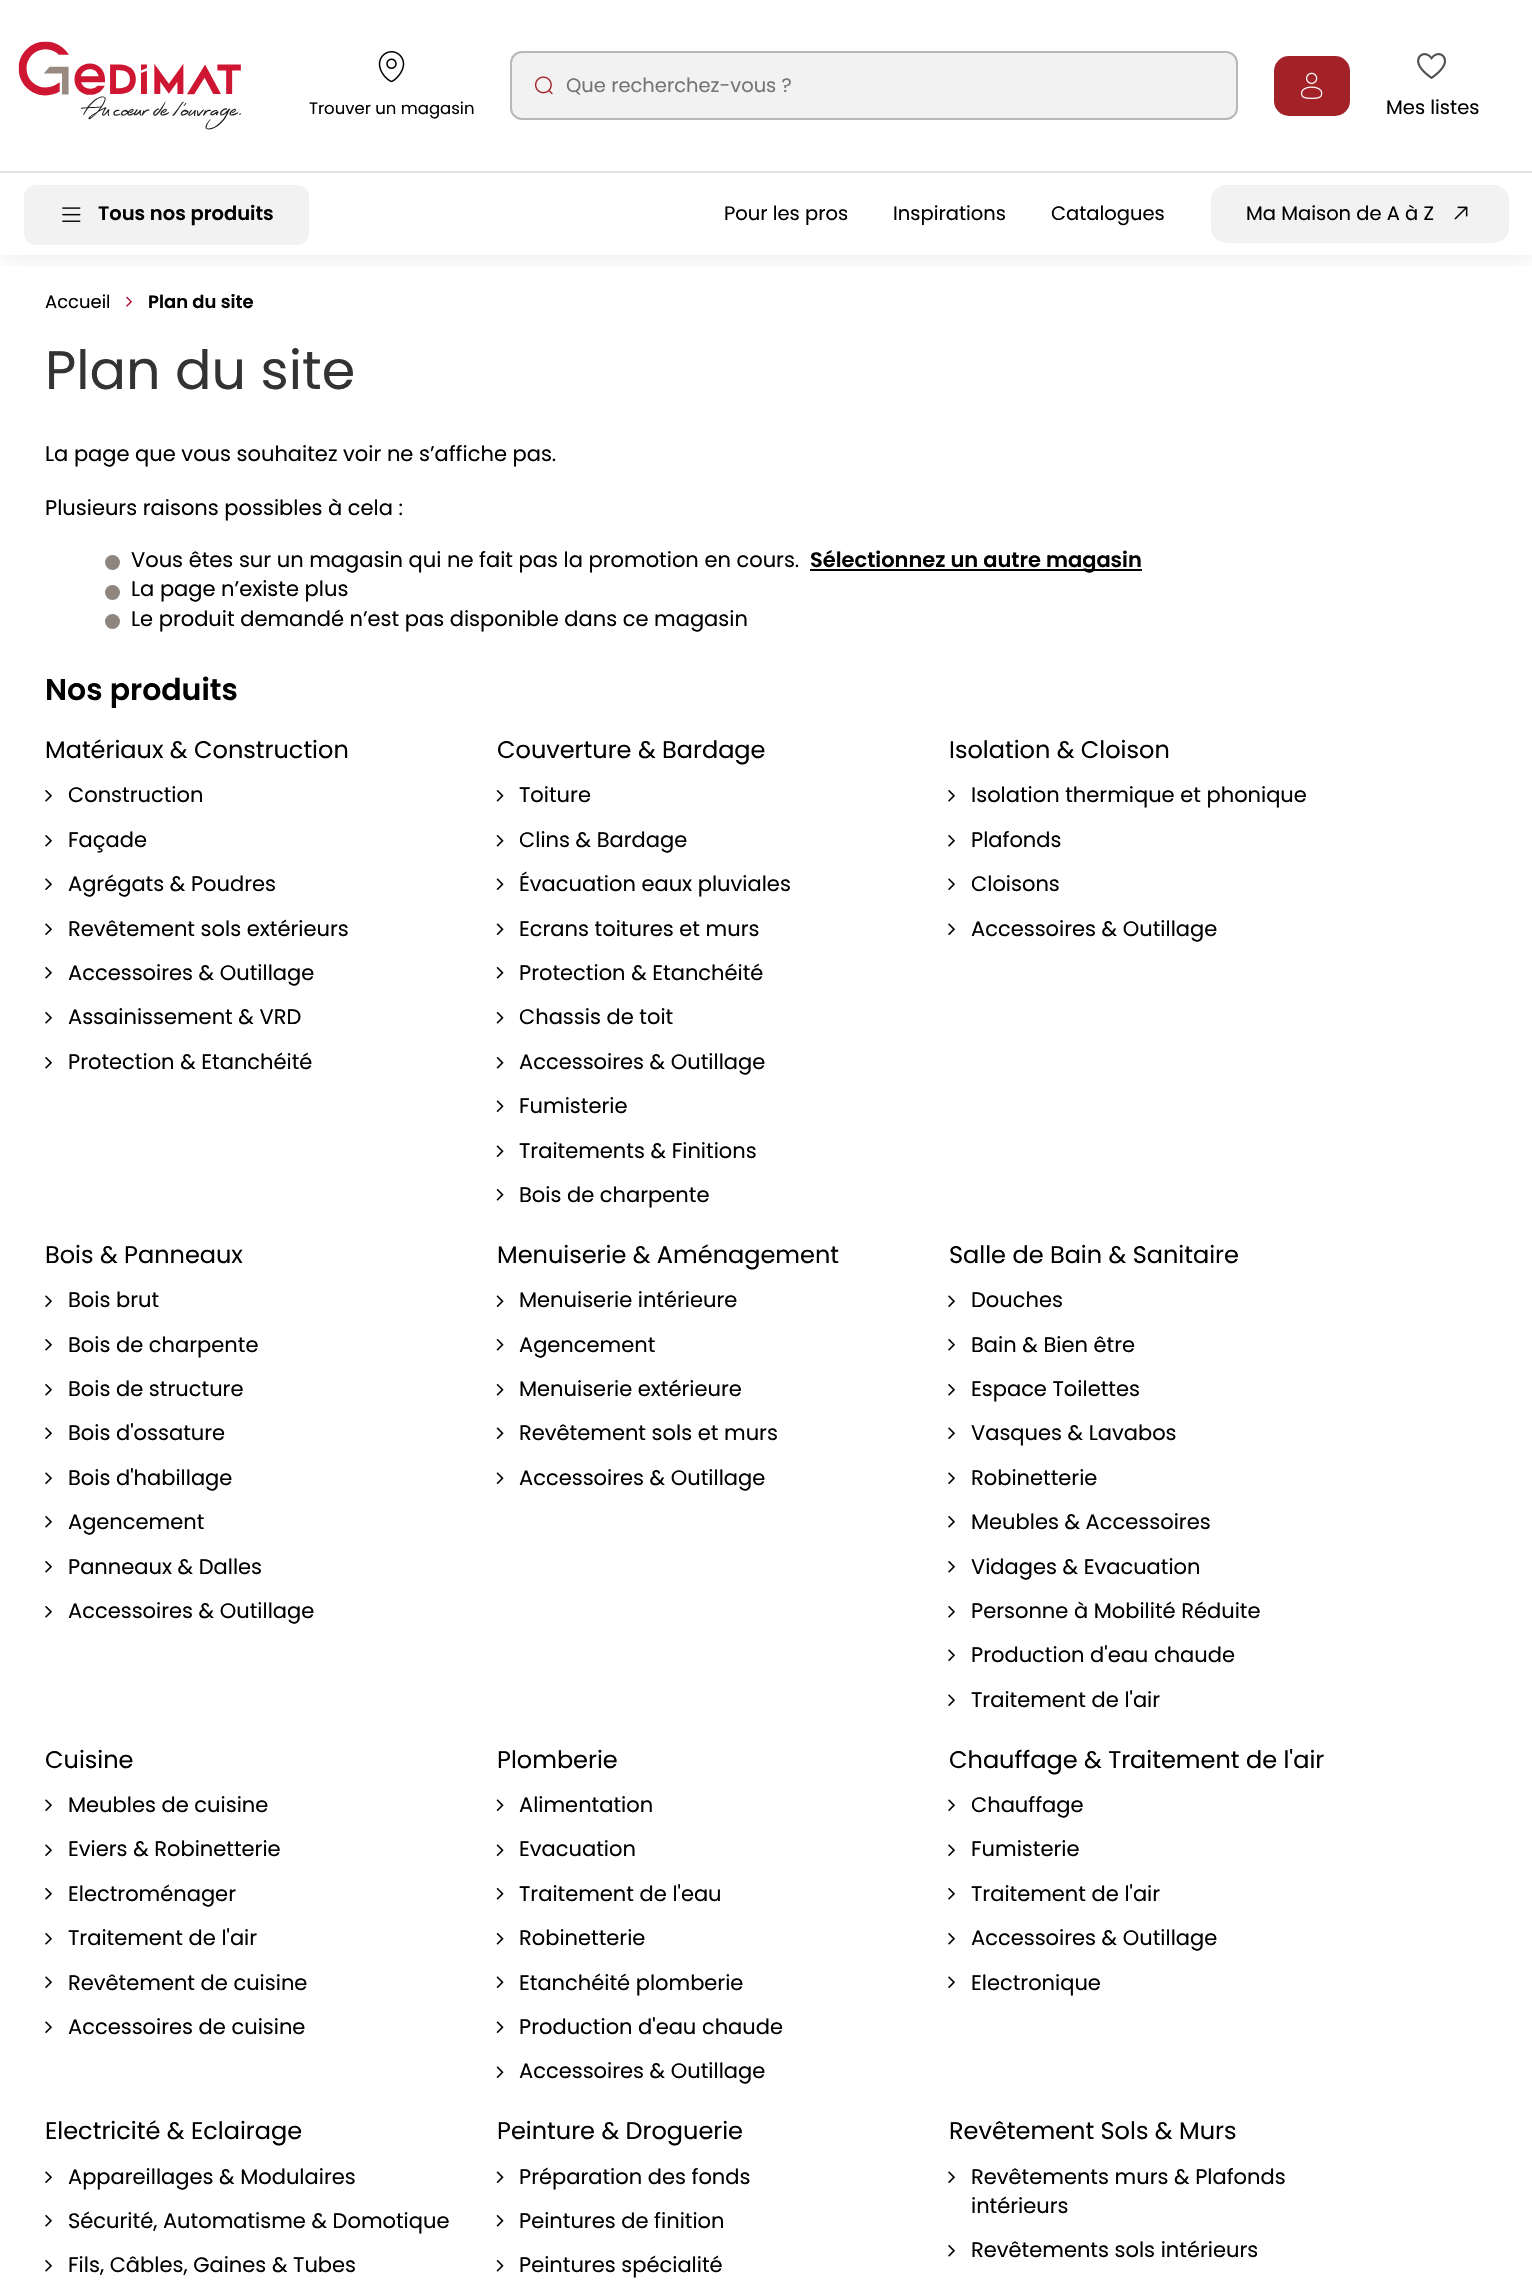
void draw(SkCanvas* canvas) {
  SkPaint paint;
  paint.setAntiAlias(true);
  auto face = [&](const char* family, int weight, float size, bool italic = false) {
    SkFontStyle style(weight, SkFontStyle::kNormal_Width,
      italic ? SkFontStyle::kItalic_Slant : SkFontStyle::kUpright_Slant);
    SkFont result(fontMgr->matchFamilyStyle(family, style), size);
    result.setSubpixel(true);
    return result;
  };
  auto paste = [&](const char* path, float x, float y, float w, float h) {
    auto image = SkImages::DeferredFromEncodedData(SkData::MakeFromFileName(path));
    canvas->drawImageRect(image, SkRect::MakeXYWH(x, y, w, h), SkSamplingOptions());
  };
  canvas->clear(0xffffffff);
  canvas->save();
  canvas->clipRect(SkRect::MakeXYWH(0, 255, 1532, 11));
  paint.setColor(0x0f000000);
  paint.setMaskFilter(SkMaskFilter::MakeBlur(kNormal_SkBlurStyle, 10.5f));
  canvas->drawRect(SkRect::MakeXYWH(0, 6, 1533, 255), paint);
  paint.setMaskFilter(nullptr);
  canvas->restore();
  paint.setColor(0xffe4e4e4);
  canvas->drawRect(SkRect::MakeXYWH(0, 171, 1532, 2), paint);
  paint.setColor(0xfff2f2f2);
  canvas->drawRoundRect(SkRect::MakeXYWH(511, 52, 726, 67), 11, 11, paint);
  paint.setStroke(true);
  paint.setStrokeWidth(2);
  paint.setColor(0xffb8b8b8);
  canvas->drawRoundRect(SkRect::MakeXYWH(511, 52, 726, 67), 11, 11, paint);
  paste("img/1.png", 534, 76, 19, 19);
  paste("img/2.png", 18, 41, 223, 89);
  paste("img/3.png", 378, 51, 27, 32);
  paint.setStroke(false);
  paint.setColor(0xffa22228);
  canvas->drawRoundRect(SkRect::MakeXYWH(1274, 56, 76, 60), 15, 15, paint);
  paste("img/4.png", 1301, 72, 22, 27);
  paste("img/5.png", 1417, 53, 29, 27);
  paint.setColor(0xfff2f2f2);
  canvas->drawRoundRect(SkRect::MakeXYWH(24, 185, 285, 60), 12, 12, paint);
  paste("img/6.png", 62, 207, 19, 15);
  canvas->drawRoundRect(SkRect::MakeXYWH(1211, 185, 298, 58), 15, 15, paint);
  paste("img/7.png", 1454, 206, 14, 14);
  paste("img/8.png", 126, 296, 6, 11);
  paint.setColor(0xff8d857e);
  canvas->drawCircle(112.5f, 562.5f, 7.5f, paint);
  paint.setColor(0xff000000);
  canvas->drawRect(SkRect::MakeXYWH(810, 569, 332, 2), paint);
  paint.setColor(0xff8d857e);
  canvas->drawCircle(112.5f, 592.5f, 7.5f, paint);
  canvas->drawCircle(112.5f, 621.5f, 7.5f, paint);
  paste("img/9.png", 45, 790, 7, 12);
  paste("img/9.png", 45, 835, 7, 12);
  paste("img/10.png", 45, 878, 7, 12);
  paste("img/10.png", 45, 923, 7, 12);
  paste("img/9.png", 45, 967, 7, 12);
  paste("img/9.png", 45, 1012, 7, 12);
  paste("img/9.png", 45, 1057, 7, 12);
  paste("img/11.png", 496, 790, 8, 12);
  paste("img/11.png", 496, 835, 8, 12);
  paste("img/12.png", 496, 878, 8, 12);
  paste("img/12.png", 496, 923, 8, 12);
  paste("img/11.png", 496, 967, 8, 12);
  paste("img/11.png", 496, 1012, 8, 12);
  paste("img/11.png", 496, 1057, 8, 12);
  paste("img/12.png", 496, 1100, 8, 12);
  paste("img/12.png", 496, 1145, 8, 12);
  paste("img/11.png", 496, 1189, 8, 12);
  paste("img/9.png", 948, 790, 7, 12);
  paste("img/9.png", 948, 835, 7, 12);
  paste("img/10.png", 948, 878, 7, 12);
  paste("img/10.png", 948, 923, 7, 12);
  paste("img/10.png", 45, 1295, 7, 12);
  paste("img/9.png", 45, 1339, 7, 12);
  paste("img/9.png", 45, 1384, 7, 12);
  paste("img/10.png", 45, 1427, 7, 12);
  paste("img/10.png", 45, 1472, 7, 12);
  paste("img/9.png", 45, 1516, 7, 12);
  paste("img/9.png", 45, 1561, 7, 12);
  paste("img/9.png", 45, 1606, 7, 12);
  paste("img/12.png", 496, 1295, 8, 12);
  paste("img/11.png", 496, 1339, 8, 12);
  paste("img/11.png", 496, 1384, 8, 12);
  paste("img/12.png", 496, 1427, 8, 12);
  paste("img/12.png", 496, 1472, 8, 12);
  paste("img/10.png", 948, 1295, 7, 12);
  paste("img/9.png", 948, 1339, 7, 12);
  paste("img/9.png", 948, 1384, 7, 12);
  paste("img/10.png", 948, 1427, 7, 12);
  paste("img/10.png", 948, 1472, 7, 12);
  paste("img/9.png", 948, 1516, 7, 12);
  paste("img/9.png", 948, 1561, 7, 12);
  paste("img/9.png", 948, 1606, 7, 12);
  paste("img/10.png", 948, 1649, 7, 12);
  paste("img/10.png", 948, 1694, 7, 12);
  paste("img/10.png", 45, 1799, 7, 12);
  paste("img/10.png", 45, 1844, 7, 12);
  paste("img/9.png", 45, 1888, 7, 12);
  paste("img/9.png", 45, 1933, 7, 12);
  paste("img/10.png", 45, 1976, 7, 12);
  paste("img/10.png", 45, 2021, 7, 12);
  paste("img/12.png", 496, 1799, 8, 12);
  paste("img/12.png", 496, 1844, 8, 12);
  paste("img/11.png", 496, 1888, 8, 12);
  paste("img/11.png", 496, 1933, 8, 12);
  paste("img/12.png", 496, 1976, 8, 12);
  paste("img/12.png", 496, 2021, 8, 12);
  paste("img/12.png", 496, 2066, 8, 12);
  paste("img/10.png", 948, 1799, 7, 12);
  paste("img/10.png", 948, 1844, 7, 12);
  paste("img/9.png", 948, 1888, 7, 12);
  paste("img/9.png", 948, 1933, 7, 12);
  paste("img/10.png", 948, 1976, 7, 12);
  paste("img/10.png", 45, 2171, 7, 12);
  paste("img/9.png", 45, 2215, 7, 12);
  paste("img/9.png", 45, 2260, 7, 12);
  paste("img/12.png", 496, 2171, 8, 12);
  paste("img/11.png", 496, 2215, 8, 12);
  paste("img/11.png", 496, 2260, 8, 12);
  paste("img/10.png", 948, 2171, 7, 12);
  paste("img/9.png", 948, 2245, 7, 12);
  paint.setColor(0xfffafafa);
  canvas->drawRect(SkRect::MakeXYWH(949, 2289, 1, 1), paint);
  auto f0 = face("Poppins", 400, 19.5f);
  paint.setColor(0xff757575);
  canvas->drawString("Que recherchez-vous ?", 566, 92, f0, paint);
  auto f1 = face("Poppins", 400, 16.5f);
  paint.setColor(0xff000000);
  canvas->drawString("Trouver un magasin", 309, 114, f1, paint);
  canvas->drawString("Mes listes", 1386, 114, f0, paint);
  auto f2 = face("Poppins", 600, 19.5f);
  canvas->drawString("Tous nos produits", 98, 220, f2, paint);
  {
    const struct { const char* s; float x, y; } items[] = {
      {"Pour les pros", 724, 220},
      {"Inspirations", 893, 220},
      {"Catalogues", 1051, 220},
      {"Ma Maison de A à Z", 1246, 220},
    };
    for (auto [s, x, y] : items) {
      canvas->drawString(s, x, y, f0, paint);
    }
  }
  auto f3 = face("Poppins", 400, 18);
  canvas->drawString("Accueil", 45, 308, f3, paint);
  auto f4 = face("Poppins", 600, 18);
  canvas->drawString("Plan du site", 148, 308, f4, paint);
  auto f5 = face("Poppins", 400, 54);
  paint.setColor(0xff333333);
  canvas->drawString("Plan du site", 45, 389, f5, paint);
  auto f6 = face("Poppins", 400, 21);
  paint.setColor(0xff000000);
  {
    const struct { const char* s; float x, y; } items[] = {
      {"La page que vous souhaitez voir ne s’affiche pas.", 45, 461},
      {"Plusieurs raisons possibles à cela :", 45, 515},
      {"Vous êtes sur un magasin qui ne fait pas la promotion en cours.", 131, 567},
    };
    for (auto [s, x, y] : items) {
      canvas->drawString(s, x, y, f6, paint);
    }
  }
  auto f7 = face("Poppins", 600, 21);
  canvas->drawString("Sélectionnez un autre magasin", 810, 567, f7, paint);
  canvas->drawString("La page n’existe plus", 131, 596, f6, paint);
  canvas->drawString("Le produit demandé n’est pas disponible dans ce magasin", 131, 626, f6, paint);
  auto f8 = face("Poppins", 600, 30);
  canvas->drawString("Nos produits", 45, 700, f8, paint);
  auto f9 = face("Poppins", 400, 24);
  canvas->drawString("Matériaux & Construction", 45, 758, f9, paint);
  {
    const struct { const char* s; float x, y; } items[] = {
      {"Construction", 68, 802},
      {"Façade", 68, 847},
      {"Agrégats & Poudres", 68, 891},
      {"Revêtement sols extérieurs", 68, 936},
      {"Accessoires & Outillage", 68, 980},
      {"Assainissement & VRD", 68, 1024},
      {"Protection & Etanchéité", 68, 1069},
    };
    for (auto [s, x, y] : items) {
      canvas->drawString(s, x, y, f6, paint);
    }
  }
  canvas->drawString("Couverture & Bardage", 497, 758, f9, paint);
  {
    const struct { const char* s; float x, y; } items[] = {
      {"Toiture", 519, 802},
      {"Clins & Bardage", 519, 847},
      {"Évacuation eaux pluviales", 519, 891},
      {"Ecrans toitures et murs", 519, 936},
      {"Protection & Etanchéité", 519, 980},
      {"Chassis de toit", 519, 1024},
      {"Accessoires & Outillage", 519, 1069},
      {"Fumisterie", 519, 1113},
      {"Traitements & Finitions", 519, 1158},
      {"Bois de charpente", 519, 1202},
    };
    for (auto [s, x, y] : items) {
      canvas->drawString(s, x, y, f6, paint);
    }
  }
  canvas->drawString("Isolation & Cloison", 949, 758, f9, paint);
  {
    const struct { const char* s; float x, y; } items[] = {
      {"Isolation thermique et phonique", 971, 802},
      {"Plafonds", 971, 847},
      {"Cloisons", 971, 891},
      {"Accessoires & Outillage", 971, 936},
    };
    for (auto [s, x, y] : items) {
      canvas->drawString(s, x, y, f6, paint);
    }
  }
  canvas->drawString("Bois & Panneaux", 45, 1263, f9, paint);
  {
    const struct { const char* s; float x, y; } items[] = {
      {"Bois brut", 68, 1307},
      {"Bois de charpente", 68, 1352},
      {"Bois de structure", 68, 1396},
      {"Bois d'ossature", 68, 1440},
      {"Bois d'habillage", 68, 1485},
      {"Agencement", 68, 1529},
      {"Panneaux & Dalles", 68, 1574},
      {"Accessoires & Outillage", 68, 1618},
    };
    for (auto [s, x, y] : items) {
      canvas->drawString(s, x, y, f6, paint);
    }
  }
  canvas->drawString("Menuiserie & Aménagement", 497, 1263, f9, paint);
  {
    const struct { const char* s; float x, y; } items[] = {
      {"Menuiserie intérieure", 519, 1307},
      {"Agencement", 519, 1352},
      {"Menuiserie extérieure", 519, 1396},
      {"Revêtement sols et murs", 519, 1440},
      {"Accessoires & Outillage", 519, 1485},
    };
    for (auto [s, x, y] : items) {
      canvas->drawString(s, x, y, f6, paint);
    }
  }
  canvas->drawString("Salle de Bain & Sanitaire", 949, 1263, f9, paint);
  {
    const struct { const char* s; float x, y; } items[] = {
      {"Douches", 971, 1307},
      {"Bain & Bien être", 971, 1352},
      {"Espace Toilettes", 971, 1396},
      {"Vasques & Lavabos", 971, 1440},
      {"Robinetterie", 971, 1485},
      {"Meubles & Accessoires", 971, 1529},
      {"Vidages & Evacuation", 971, 1574},
      {"Personne à Mobilité Réduite", 971, 1618},
      {"Production d'eau chaude", 971, 1662},
      {"Traitement de l'air", 971, 1707},
    };
    for (auto [s, x, y] : items) {
      canvas->drawString(s, x, y, f6, paint);
    }
  }
  canvas->drawString("Cuisine", 45, 1768, f9, paint);
  {
    const struct { const char* s; float x, y; } items[] = {
      {"Meubles de cuisine", 68, 1812},
      {"Eviers & Robinetterie", 68, 1856},
      {"Electroménager", 68, 1901},
      {"Traitement de l'air", 68, 1945},
      {"Revêtement de cuisine", 68, 1990},
      {"Accessoires de cuisine", 68, 2034},
    };
    for (auto [s, x, y] : items) {
      canvas->drawString(s, x, y, f6, paint);
    }
  }
  canvas->drawString("Plomberie", 497, 1768, f9, paint);
  {
    const struct { const char* s; float x, y; } items[] = {
      {"Alimentation", 519, 1812},
      {"Evacuation", 519, 1856},
      {"Traitement de l'eau", 519, 1901},
      {"Robinetterie", 519, 1945},
      {"Etanchéité plomberie", 519, 1990},
      {"Production d'eau chaude", 519, 2034},
      {"Accessoires & Outillage", 519, 2078},
    };
    for (auto [s, x, y] : items) {
      canvas->drawString(s, x, y, f6, paint);
    }
  }
  canvas->drawString("Chauffage & Traitement de l'air", 949, 1768, f9, paint);
  {
    const struct { const char* s; float x, y; } items[] = {
      {"Chauffage", 971, 1812},
      {"Fumisterie", 971, 1856},
      {"Traitement de l'air", 971, 1901},
      {"Accessoires & Outillage", 971, 1945},
      {"Electronique", 971, 1990},
    };
    for (auto [s, x, y] : items) {
      canvas->drawString(s, x, y, f6, paint);
    }
  }
  canvas->drawString("Electricité & Eclairage", 45, 2139, f9, paint);
  {
    const struct { const char* s; float x, y; } items[] = {
      {"Appareillages & Modulaires", 68, 2184},
      {"Sécurité, Automatisme & Domotique", 68, 2228},
      {"Fils, Câbles, Gaines & Tubes", 68, 2272},
    };
    for (auto [s, x, y] : items) {
      canvas->drawString(s, x, y, f6, paint);
    }
  }
  canvas->drawString("Peinture & Droguerie", 497, 2139, f9, paint);
  {
    const struct { const char* s; float x, y; } items[] = {
      {"Préparation des fonds", 519, 2184},
      {"Peintures de finition", 519, 2228},
      {"Peintures spécialité", 519, 2272},
    };
    for (auto [s, x, y] : items) {
      canvas->drawString(s, x, y, f6, paint);
    }
  }
  canvas->drawString("Revêtement Sols & Murs", 949, 2139, f9, paint);
  {
    const struct { const char* s; float x, y; } items[] = {
      {"Revêtements murs & Plafonds", 971, 2184},
      {"intérieurs", 971, 2213},
      {"Revêtements sols intérieurs", 971, 2257},
    };
    for (auto [s, x, y] : items) {
      canvas->drawString(s, x, y, f6, paint);
    }
  }
}
